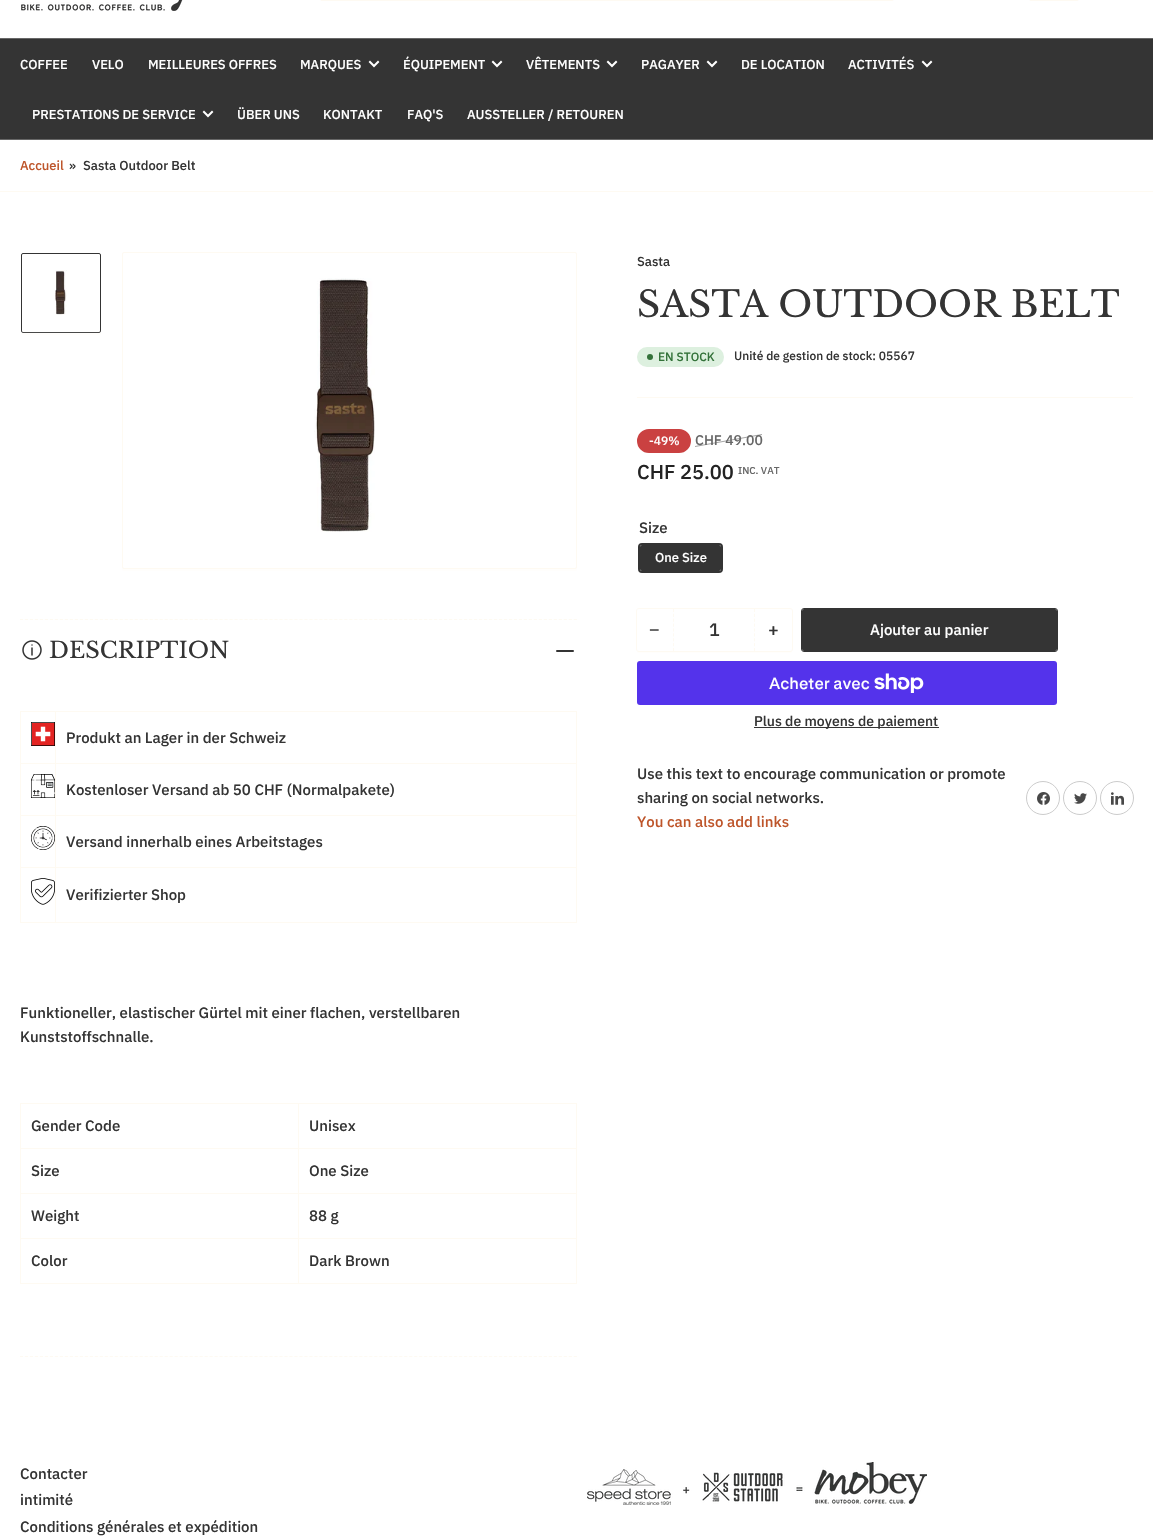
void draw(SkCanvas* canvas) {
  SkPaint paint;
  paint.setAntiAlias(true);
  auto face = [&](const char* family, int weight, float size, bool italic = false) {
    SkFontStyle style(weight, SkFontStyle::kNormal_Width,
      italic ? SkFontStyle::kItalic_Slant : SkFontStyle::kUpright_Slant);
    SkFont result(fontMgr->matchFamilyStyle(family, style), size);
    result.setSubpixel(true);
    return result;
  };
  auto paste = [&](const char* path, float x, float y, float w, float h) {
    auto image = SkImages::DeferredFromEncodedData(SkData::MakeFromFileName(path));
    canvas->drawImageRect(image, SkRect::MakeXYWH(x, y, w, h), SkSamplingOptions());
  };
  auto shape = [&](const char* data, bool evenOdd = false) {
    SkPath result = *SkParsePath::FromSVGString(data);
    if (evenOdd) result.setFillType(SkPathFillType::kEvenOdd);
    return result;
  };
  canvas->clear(0xffffffff);
  paint.setStroke(true);
  paint.setStrokeWidth(1);
  paint.setColor(0xfffefaf2);
  canvas->drawRoundRect(SkRect::MakeXYWH(320.5f, -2.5f, 573, 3), 1.5f, 1.5f, paint);
  canvas->drawRoundRect(SkRect::MakeXYWH(1029.5f, -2.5f, 49, 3), 1.5f, 1.5f, paint);
  paste("img/1.png", 21, 0, 162, 11);
  paint.setStroke(false);
  {
    const struct { float x, y, w, h; SkColor color; } items[] = {
      {0, 39, 1153, 100, 0xff343434},
      {0, 38, 1153, 1, 0xff676767},
      {0, 139, 1153, 1, 0xff676767},
    };
    for (auto [x, y, w, h, color] : items) {
      paint.setColor(color);
      canvas->drawRect(SkRect::MakeXYWH(x, y, w, h), paint);
    }
  }
  paint.setStroke(true);
  paint.setStrokeWidth(2);
  paint.setStrokeCap(SkPaint::kSquare_Cap);
  paint.setColor(0xffffffff);
  canvas->drawPath(shape("M378 62L374 66L370 62"), paint);
  canvas->drawPath(shape("M501 62L497 66L493 62"), paint);
  canvas->drawPath(shape("M616 62L612 66L608 62"), paint);
  canvas->drawPath(shape("M716 62L712 66L708 62"), paint);
  canvas->drawPath(shape("M931 62L927 66L923 62"), paint);
  canvas->drawPath(shape("M212 112L208 116L204 112"), paint);
  paint.setStroke(false);
  paint.setColor(0xfffefaf2);
  canvas->drawRect(SkRect::MakeXYWH(0, 191, 1153, 1), paint);
  paint.setColor(0xfffffefc);
  canvas->drawPath(shape("M21 331V333C21 334 22 335 23 335H99C100 335 101 334 101 333V331C101 332 100 333 99 333H23C22 333 21 332 21 331Z"), paint);
  paint.setStroke(true);
  paint.setStrokeWidth(1);
  paint.setStrokeCap(SkPaint::kButt_Cap);
  paint.setColor(0xff343434);
  canvas->drawRoundRect(SkRect::MakeXYWH(21.5f, 253.5f, 79, 79), 1.5f, 1.5f, paint);
  paste("img/2.png", 55, 270, 12, 45);
  paint.setStroke(false);
  {
    const SkColor colors[] = {0xffffffff, 0x00ffffff};
    const float stops[] = {0, 1};
    const SkPoint ends[] = {{61, 364}, {61, 329}};
    paint.setShader(SkGradientShader::MakeLinear(ends, colors, stops, 2, SkTileMode::kClamp));
    paint.setAlpha(255);
  }
  canvas->drawRect(SkRect::MakeXYWH(21, 330, 80, 3), paint);
  paint.setShader(nullptr);
  paint.setColor(0xfffffefc);
  canvas->drawPath(shape("M122 567C122 569 122 571 124 571H576L577 570V567C577 568 576 569 575 569H124C123 569 122 568 122 567Z"), paint);
  paint.setStroke(true);
  paint.setColor(0xfffefaf2);
  canvas->drawRoundRect(SkRect::MakeXYWH(122.5f, 252.5f, 454, 316), 1.5f, 1.5f, paint);
  paste("img/3.png", 314, 278, 61, 254);
  paint.setStroke(false);
  canvas->drawRect(SkRect::MakeXYWH(637, 397, 496, 1), paint);
  paint.setColor(0xffddf0df);
  canvas->drawRoundRect(SkRect::MakeXYWH(637, 347, 87, 20), 10, 10, paint);
  paint.setColor(0xff337239);
  canvas->drawCircle(650, 357, 3, paint);
  paint.setColor(0xffca4141);
  canvas->drawRoundRect(SkRect::MakeXYWH(638, 430, 52, 22), 11, 11, paint);
  paint.setStroke(true);
  paint.setStrokeWidth(2);
  canvas->drawRoundRect(SkRect::MakeXYWH(638, 430, 52, 22), 11, 11, paint);
  paint.setColor(0xff343434);
  canvas->drawRoundRect(SkRect::MakeXYWH(639, 544, 83, 28), 3, 3, paint);
  paint.setStroke(false);
  canvas->drawRoundRect(SkRect::MakeXYWH(640, 545, 81, 26), 2, 2, paint);
  paint.setColor(0xfffffefc);
  canvas->drawPath(shape("M637 649C637 651 637 653 639 653H791C792 652 792 650 792 649C792 650 791 651 790 651H639C638 651 637 650 637 649Z"), paint);
  paint.setStroke(true);
  paint.setStrokeWidth(1);
  paint.setColor(0xfffefaf2);
  canvas->drawRoundRect(SkRect::MakeXYWH(636.5f, 608.5f, 156, 43), 2.5f, 2.5f, paint);
  paint.setStroke(false);
  paint.setColor(0xffffffff);
  canvas->drawRoundRect(SkRect::MakeXYWH(637, 609, 155, 42), 2, 2, paint);
  paint.setStroke(true);
  paint.setColor(0xfffefaf2);
  paint.setPathEffect(SkDashPathEffect::Make({{3, 1.88f}}, 0));
  canvas->drawPath(shape("M754.5 609V651"), paint);
  paint.setPathEffect(nullptr);
  paint.setPathEffect(SkDashPathEffect::Make({{3, 1.88f}}, 0));
  canvas->drawPath(shape("M673.5 609V651"), paint);
  paint.setPathEffect(nullptr);
  paint.setColor(0xff343434);
  canvas->drawRoundRect(SkRect::MakeXYWH(801.5f, 608.5f, 256, 43), 2.5f, 2.5f, paint);
  paint.setStroke(false);
  canvas->drawRoundRect(SkRect::MakeXYWH(802, 609, 255, 42), 2, 2, paint);
  paint.setColor(0xff5433eb);
  canvas->drawRoundRect(SkRect::MakeXYWH(637, 661, 420, 44), 3, 3, paint);
  paste("img/4.png", 874, 673, 50, 20);
  paint.setColor(0xff343434);
  canvas->drawRect(SkRect::MakeXYWH(754, 727, 185, 1), paint);
  paint.setStroke(true);
  paint.setColor(0xffcccccc);
  canvas->drawCircle(1043, 798, 16.5f, paint);
  paste("img/5.png", 1037, 792, 13, 13);
  canvas->drawCircle(1080, 798, 16.5f, paint);
  paste("img/6.png", 1074, 793, 13, 11);
  canvas->drawCircle(1117, 798, 16.5f, paint);
  paste("img/7.png", 1111, 792, 13, 13);
  paint.setColor(0xfffefaf2);
  paint.setPathEffect(SkDashPathEffect::Make({{3, 1.99f}}, 0));
  canvas->drawPath(shape("M20 619.5H577"), paint);
  paint.setPathEffect(nullptr);
  paint.setPathEffect(SkDashPathEffect::Make({{3, 1.99f}}, 0));
  canvas->drawPath(shape("M20 1356.5H577"), paint);
  paint.setPathEffect(nullptr);
  paste("img/8.png", 22, 640, 20, 20);
  paint.setStroke(false);
  paint.setColor(0xff343434);
  canvas->drawRoundRect(SkRect::MakeXYWH(556, 650, 12, 2), 1, 1, paint);
  canvas->drawRoundRect(SkRect::MakeXYWH(563, 650, 11, 2), 1, 1, paint);
  {
    const struct { float x, y, w, h; SkColor color; } items[] = {
      {55, 711, 522, 1, 0xfffefaf2},
      {55, 763, 522, 1, 0xfffefaf2},
      {55, 815, 522, 1, 0xfffefaf2},
      {55, 867, 522, 1, 0xfffefaf2},
      {576, 867, 1, 56, 0xfffefaf2},
      {55, 922, 522, 1, 0xfffefaf2},
      {55, 867, 1, 56, 0xfffefaf2},
      {20, 867, 36, 1, 0xfffefaf2},
      {55, 815, 1, 53, 0xfffefaf2},
      {20, 815, 36, 1, 0xfffefaf2},
      {55, 763, 1, 53, 0xfffefaf2},
      {20, 763, 36, 1, 0xfffefaf2},
      {55, 711, 1, 53, 0xfffefaf2},
      {20, 711, 36, 1, 0xfffefaf2},
      {20, 922, 36, 1, 0xfffefaf2},
      {20, 867, 1, 56, 0xfffefaf2},
      {20, 815, 1, 53, 0xfffefaf2},
      {20, 763, 1, 53, 0xfffefaf2},
      {20, 711, 1, 53, 0xfffefaf2},
    };
    for (auto [x, y, w, h, color] : items) {
      paint.setColor(color);
      canvas->drawRect(SkRect::MakeXYWH(x, y, w, h), paint);
    }
  }
  paste("img/9.png", 31, 722, 24, 24);
  {
    const struct { float x, y, w, h; SkColor color; } items[] = {
      {576, 815, 1, 53, 0xfffefaf2},
      {576, 763, 1, 53, 0xfffefaf2},
      {576, 711, 1, 53, 0xfffefaf2},
    };
    for (auto [x, y, w, h, color] : items) {
      paint.setColor(color);
      canvas->drawRect(SkRect::MakeXYWH(x, y, w, h), paint);
    }
  }
  paste("img/10.png", 31, 774, 24, 24);
  paste("img/11.png", 31, 826, 24, 24);
  paste("img/12.png", 31, 878, 24, 27);
  {
    const struct { float x, y, w, h; SkColor color; } items[] = {
      {298, 1103, 279, 1, 0xfffefaf2},
      {298, 1148, 279, 1, 0xfffefaf2},
      {298, 1193, 279, 1, 0xfffefaf2},
      {298, 1238, 279, 1, 0xfffefaf2},
      {576, 1238, 1, 46, 0xfffefaf2},
      {298, 1283, 279, 1, 0xfffefaf2},
      {298, 1238, 1, 46, 0xfffefaf2},
      {20, 1238, 279, 1, 0xfffefaf2},
      {298, 1193, 1, 46, 0xfffefaf2},
      {20, 1193, 279, 1, 0xfffefaf2},
      {298, 1148, 1, 46, 0xfffefaf2},
      {20, 1148, 279, 1, 0xfffefaf2},
      {298, 1103, 1, 46, 0xfffefaf2},
      {20, 1103, 279, 1, 0xfffefaf2},
      {20, 1283, 279, 1, 0xfffefaf2},
      {20, 1238, 1, 46, 0xfffefaf2},
      {20, 1193, 1, 46, 0xfffefaf2},
      {20, 1148, 1, 46, 0xfffefaf2},
      {20, 1103, 1, 46, 0xfffefaf2},
      {576, 1193, 1, 46, 0xfffefaf2},
      {576, 1148, 1, 46, 0xfffefaf2},
      {576, 1103, 1, 46, 0xfffefaf2},
    };
    for (auto [x, y, w, h, color] : items) {
      paint.setColor(color);
      canvas->drawRect(SkRect::MakeXYWH(x, y, w, h), paint);
    }
  }
  paste("img/13.png", 587, 1462, 340, 43);
  auto f0 = face("IBM Plex Sans", 500, 13);
  paint.setColor(0xffffffff);
  {
    const struct { const char* s; float x, y; } items[] = {
      {"COFFEE", 20, 69},
      {"VELO", 92, 69},
      {"MEILLEURES OFFRES", 148, 69},
      {"MARQUES", 300, 69},
      {"ÉQUIPEMENT", 403, 69},
      {"VÊTEMENTS", 526, 69},
      {"PAGAYER", 641, 69},
      {"DE LOCATION", 741, 69},
      {"ACTIVITÉS", 848, 69},
      {"PRESTATIONS DE SERVICE", 32, 119},
      {"ÜBER UNS", 237, 119},
      {"KONTAKT", 323, 119},
      {"FAQ'S", 407, 119},
      {"AUSSTELLER / RETOUREN", 467, 119},
    };
    for (auto [s, x, y] : items) {
      canvas->drawString(s, x, y, f0, paint);
    }
  }
  paint.setColor(0xffbe552a);
  canvas->drawString("Accueil", 20, 170, f0, paint);
  paint.setColor(0xff343434);
  {
    const struct { const char* s; float x, y; } items[] = {
      {"»", 69, 170},
      {"Sasta Outdoor Belt", 83, 170},
      {"Sasta", 637, 266},
    };
    for (auto [s, x, y] : items) {
      canvas->drawString(s, x, y, f0, paint);
    }
  }
  auto f1 = face("Libre Baskerville", 400, 36);
  canvas->drawString("SASTA OUTDOOR BELT", 637, 317, f1, paint);
  auto f2 = face("IBM Plex Sans", 500, 12);
  paint.setColor(0xff337239);
  canvas->drawString("EN STOCK", 658, 361, f2, paint);
  paint.setColor(0xff343434);
  canvas->drawString("Unité de gestion de stock: 05567", 734, 360, f2, paint);
  paint.setColor(0xffffffff);
  canvas->drawString("-49%", 649, 445, f2, paint);
  auto f3 = face("IBM Plex Sans", 500, 14);
  paint.setColor(0xff676767);
  canvas->drawString("CHF 49.00", 695, 445, f3, paint);
  paint.setColor(0x99676767);
  canvas->drawPath(shape("M695 446L762 434V435L695 447Z"), paint);
  auto f4 = face("IBM Plex Sans", 500, 20);
  paint.setColor(0xff232323);
  canvas->drawString("CHF 25.00", 637, 479, f4, paint);
  auto f5 = face("IBM Plex Sans", 500, 10);
  paint.setColor(0xff676767);
  canvas->drawString("INC. VAT", 738, 474, f5, paint);
  auto f6 = face("IBM Plex Sans", 500, 15);
  paint.setColor(0xff343434);
  canvas->drawString("Size", 639, 533, f6, paint);
  paint.setColor(0xffffffff);
  canvas->drawString("One Size", 655, 562, f0, paint);
  auto f7 = face("Liberation Sans", 400, 18);
  paint.setColor(0xff343434);
  canvas->drawString("−", 649, 636, f7, paint);
  auto f8 = face("IBM Plex Sans", 500, 18);
  canvas->drawString("1", 709, 636, f8, paint);
  canvas->drawString("+", 768, 636, f8, paint);
  paint.setColor(0xffffffff);
  canvas->drawString("Ajouter au panier", 870, 635, f6, paint);
  auto f9 = face("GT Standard", 500, 16);
  canvas->drawString("Acheter avec", 769, 689, f9, paint);
  paint.setColor(0xff343434);
  canvas->drawString("Plus de moyens de paiement", 754, 726, f3, paint);
  canvas->drawString("Use this text to encourage communication or promote", 637, 779, f6, paint);
  canvas->drawString("sharing on social networks.", 637, 803, f6, paint);
  paint.setColor(0xffbe552a);
  canvas->drawString("You can also add links", 637, 827, f6, paint);
  auto f10 = face("Libre Baskerville", 400, 22.5f);
  paint.setColor(0xff343434);
  canvas->drawString("DESCRIPTION", 49, 658, f10, paint);
  {
    const struct { const char* s; float x, y; } items[] = {
      {"Produkt an Lager in der Schweiz", 66, 743},
      {"Kostenloser Versand ab 50 CHF (Normalpakete)", 66, 795},
      {"Versand innerhalb eines Arbeitstages", 66, 847},
      {"Verifizierter Shop", 66, 900},
      {"Funktioneller, elastischer Gürtel mit einer flachen, verstellbaren", 20, 1018},
      {"Kunststoffschnalle.", 20, 1042},
      {"Gender Code", 31, 1131},
      {"Unisex", 309, 1131},
      {"Size", 31, 1176},
      {"One Size", 309, 1176},
      {"Weight", 31, 1221},
      {"88 g", 309, 1221},
      {"Color", 31, 1266},
      {"Dark Brown", 309, 1266},
      {"Contacter", 20, 1479},
      {"intimité", 20, 1505},
      {"Conditions générales et expédition", 20, 1532},
    };
    for (auto [s, x, y] : items) {
      canvas->drawString(s, x, y, f6, paint);
    }
  }
}
